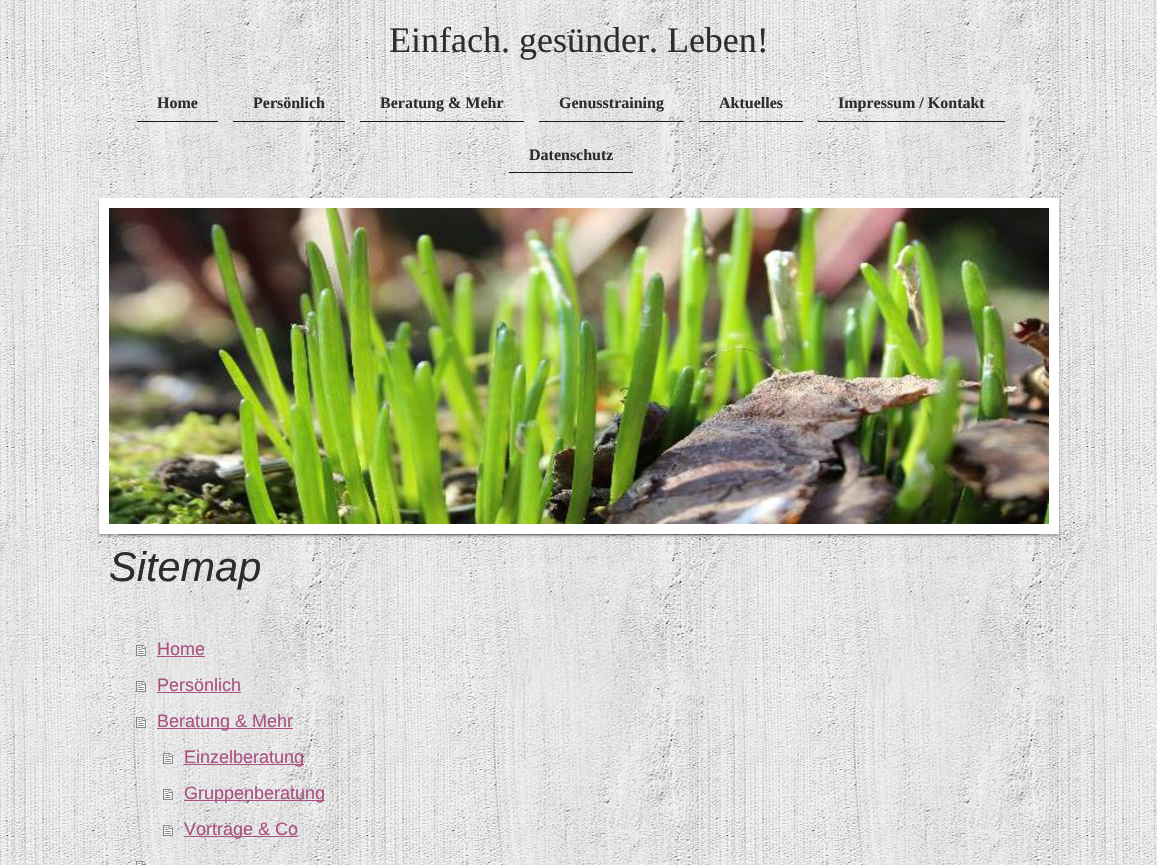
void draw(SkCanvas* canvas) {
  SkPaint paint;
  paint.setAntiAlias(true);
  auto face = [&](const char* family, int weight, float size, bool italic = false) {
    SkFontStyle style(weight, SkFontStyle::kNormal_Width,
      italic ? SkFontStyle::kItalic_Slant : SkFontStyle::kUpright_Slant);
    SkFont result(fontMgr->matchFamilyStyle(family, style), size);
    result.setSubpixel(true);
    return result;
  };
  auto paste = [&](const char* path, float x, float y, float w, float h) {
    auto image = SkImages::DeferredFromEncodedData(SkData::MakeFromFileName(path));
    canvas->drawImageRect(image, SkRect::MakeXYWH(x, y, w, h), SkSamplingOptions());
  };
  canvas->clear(0xffffffff);
  paste("img/1.png", 0, 0, 1157, 865);
  {
    const struct { float x, y, w, h; SkColor color; } items[] = {
      {137, 121, 81, 1, 0xff1a1a1a},
      {233, 121, 112, 1, 0xff1a1a1a},
      {360, 121, 164, 1, 0xff1a1a1a},
      {539, 121, 145, 1, 0xff1a1a1a},
      {699, 121, 104, 1, 0xff1a1a1a},
      {818, 121, 187, 1, 0xff1a1a1a},
      {509, 172, 124, 1, 0xff1a1a1a},
    };
    for (auto [x, y, w, h, color] : items) {
      paint.setColor(color);
      canvas->drawRect(SkRect::MakeXYWH(x, y, w, h), paint);
    }
  }
  paint.setColor(0x4d000000);
  paint.setMaskFilter(SkMaskFilter::MakeBlur(kNormal_SkBlurStyle, 1.5f));
  canvas->drawRect(SkRect::MakeXYWH(99, 200, 960, 336), paint);
  paint.setMaskFilter(nullptr);
  paint.setColor(0xff000000);
  paint.setMaskFilter(SkMaskFilter::MakeBlur(kNormal_SkBlurStyle, 1));
  canvas->drawRect(SkRect::MakeXYWH(119, 238, 920, 296), paint);
  paint.setMaskFilter(nullptr);
  paint.setStroke(true);
  paint.setStrokeWidth(10);
  paint.setColor(0xffffffff);
  canvas->drawRect(SkRect::MakeXYWH(104, 203, 950, 326), paint);
  paste("img/2.png", 109, 208, 940, 316);
  paste("img/3.png", 136, 645, 10, 11);
  paint.setStroke(false);
  paint.setColor(0xffaa5082);
  canvas->drawRect(SkRect::MakeXYWH(157, 656, 48, 1), paint);
  paste("img/4.png", 136, 681, 10, 11);
  canvas->drawRect(SkRect::MakeXYWH(157, 692, 84, 1), paint);
  paste("img/5.png", 136, 717, 10, 11);
  canvas->drawRect(SkRect::MakeXYWH(157, 728, 136, 1), paint);
  paste("img/6.png", 163, 753, 10, 11);
  canvas->drawRect(SkRect::MakeXYWH(184, 764, 120, 1), paint);
  paste("img/7.png", 163, 789, 10, 11);
  canvas->drawRect(SkRect::MakeXYWH(184, 800, 141, 1), paint);
  paste("img/8.png", 163, 825, 10, 11);
  canvas->drawRect(SkRect::MakeXYWH(184, 836, 114, 1), paint);
  paste("img/9.png", 136, 861, 10, 4);
  auto f0 = face("Liberation Serif", 400, 36);
  paint.setColor(0xff2d2d2d);
  canvas->drawString("Einfach. gesünder. Leben!", 389, 52, f0, paint);
  auto f1 = face("Liberation Serif", 700, 16);
  {
    const struct { const char* s; float x, y; } items[] = {
      {"Home", 157, 108},
      {"Persönlich", 253, 108},
      {"Beratung & Mehr", 380, 108},
      {"Genusstraining", 559, 108},
      {"Aktuelles", 719, 108},
      {"Impressum / Kontakt", 838, 108},
      {"Datenschutz", 529, 160},
    };
    for (auto [s, x, y] : items) {
      canvas->drawString(s, x, y, f1, paint);
    }
  }
  auto f2 = face("Liberation Sans", 400, 41.5f, true);
  canvas->drawString("Sitemap", 109, 581, f2, paint);
  auto f3 = face("Liberation Sans", 400, 18);
  paint.setColor(0xffaa5082);
  {
    const struct { const char* s; float x, y; } items[] = {
      {"Home", 157, 655},
      {"Persönlich", 157, 691},
      {"Beratung & Mehr", 157, 727},
      {"Einzelberatung", 184, 763},
      {"Gruppenberatung", 184, 799},
      {"Vorträge & Co", 184, 835},
    };
    for (auto [s, x, y] : items) {
      canvas->drawString(s, x, y, f3, paint);
    }
  }
}
